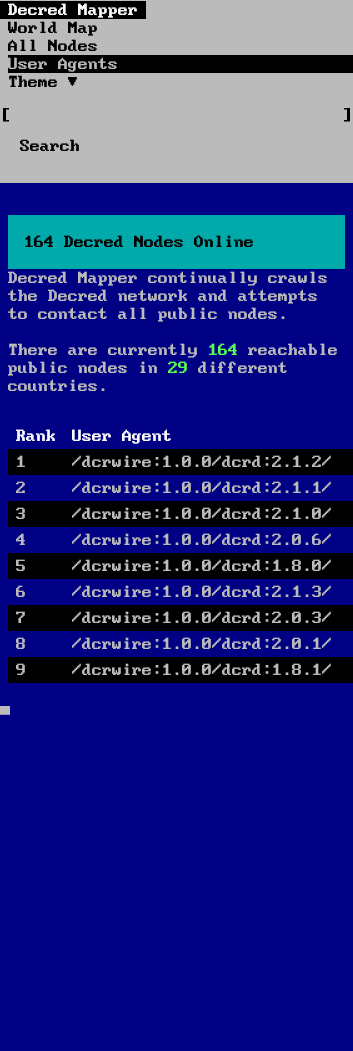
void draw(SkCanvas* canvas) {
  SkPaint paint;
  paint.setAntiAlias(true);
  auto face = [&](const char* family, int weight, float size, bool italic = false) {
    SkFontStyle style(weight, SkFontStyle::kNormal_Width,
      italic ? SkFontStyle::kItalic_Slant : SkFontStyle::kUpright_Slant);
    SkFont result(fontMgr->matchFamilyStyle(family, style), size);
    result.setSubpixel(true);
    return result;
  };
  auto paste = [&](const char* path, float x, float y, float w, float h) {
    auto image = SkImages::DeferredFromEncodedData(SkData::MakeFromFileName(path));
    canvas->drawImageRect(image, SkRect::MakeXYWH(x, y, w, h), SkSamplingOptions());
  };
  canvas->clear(0xff000084);
  {
    const struct { float x, y, w, h; SkColor color; } items[] = {
      {0, 0, 353, 183, 0xffbbbbbb},
      {0, 1, 146, 18, 0xff000000},
      {8, 55, 345, 18, 0xff000000},
    };
    for (auto [x, y, w, h, color] : items) {
      paint.setColor(color);
      canvas->drawRect(SkRect::MakeXYWH(x, y, w, h), paint);
    }
  }
  paste("img/1.png", 344, 108, 6, 14);
  paste("img/2.png", 3, 108, 6, 14);
  {
    const struct { float x, y, w, h; SkColor color; } items[] = {
      {8, 215, 337, 54, 0xff00aaaa},
      {8, 449, 345, 26, 0xff000000},
      {8, 501, 345, 26, 0xff000000},
      {8, 553, 345, 26, 0xff000000},
      {8, 605, 345, 26, 0xff000000},
      {8, 657, 345, 26, 0xff000000},
    };
    for (auto [x, y, w, h, color] : items) {
      paint.setColor(color);
      canvas->drawRect(SkRect::MakeXYWH(x, y, w, h), paint);
    }
  }
  auto f0 = face("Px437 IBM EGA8", 400, 20);
  paint.setColor(0xffffffff);
  canvas->drawString("Decred Mapper", 8, 15, f0, paint);
  paint.setColor(0xff000000);
  canvas->drawString("World Map", 8, 33, f0, paint);
  canvas->drawString("All Nodes", 8, 51, f0, paint);
  paint.setColor(0xffbbbbbb);
  canvas->drawString("User Agents", 8, 69, f0, paint);
  paint.setColor(0xff000000);
  {
    const struct { const char* s; float x, y; } items[] = {
      {"Theme ▼", 8, 87},
      {"Search", 20, 151},
      {"164 Decred Nodes Online", 24, 247},
    };
    for (auto [s, x, y] : items) {
      canvas->drawString(s, x, y, f0, paint);
    }
  }
  paint.setColor(0xffbbbbbb);
  {
    const struct { const char* s; float x, y; } items[] = {
      {"Decred Mapper continually crawls", 8, 283},
      {"the Decred network and attempts", 8, 301},
      {"to contact all public nodes.", 8, 319},
      {"There are currently", 8, 355},
    };
    for (auto [s, x, y] : items) {
      canvas->drawString(s, x, y, f0, paint);
    }
  }
  paint.setColor(0xff55ff55);
  canvas->drawString("164", 208, 355, f0, paint);
  paint.setColor(0xffbbbbbb);
  canvas->drawString("reachable", 248, 355, f0, paint);
  canvas->drawString("public nodes in", 8, 373, f0, paint);
  paint.setColor(0xff55ff55);
  canvas->drawString("29", 168, 373, f0, paint);
  paint.setColor(0xffbbbbbb);
  canvas->drawString("different", 198, 373, f0, paint);
  canvas->drawString("countries.", 8, 391, f0, paint);
  paint.setColor(0xffffffff);
  canvas->drawString("Rank", 16, 441, f0, paint);
  canvas->drawString("User Agent", 72, 441, f0, paint);
  paint.setColor(0xffbbbbbb);
  {
    const struct { const char* s; float x, y; } items[] = {
      {"1", 16, 467},
      {"/dcrwire:1.0.0/dcrd:2.1.2/", 72, 467},
      {"2", 16, 493},
      {"/dcrwire:1.0.0/dcrd:2.1.1/", 72, 493},
      {"3", 16, 519},
      {"/dcrwire:1.0.0/dcrd:2.1.0/", 72, 519},
      {"4", 16, 545},
      {"/dcrwire:1.0.0/dcrd:2.0.6/", 72, 545},
      {"5", 16, 571},
      {"/dcrwire:1.0.0/dcrd:1.8.0/", 72, 571},
      {"6", 16, 597},
      {"/dcrwire:1.0.0/dcrd:2.1.3/", 72, 597},
      {"7", 16, 623},
      {"/dcrwire:1.0.0/dcrd:2.0.3/", 72, 623},
      {"8", 16, 649},
      {"/dcrwire:1.0.0/dcrd:2.0.1/", 72, 649},
      {"9", 16, 675},
      {"/dcrwire:1.0.0/dcrd:1.8.1/", 72, 675},
      {"▄", 0, 711},
    };
    for (auto [s, x, y] : items) {
      canvas->drawString(s, x, y, f0, paint);
    }
  }
}
